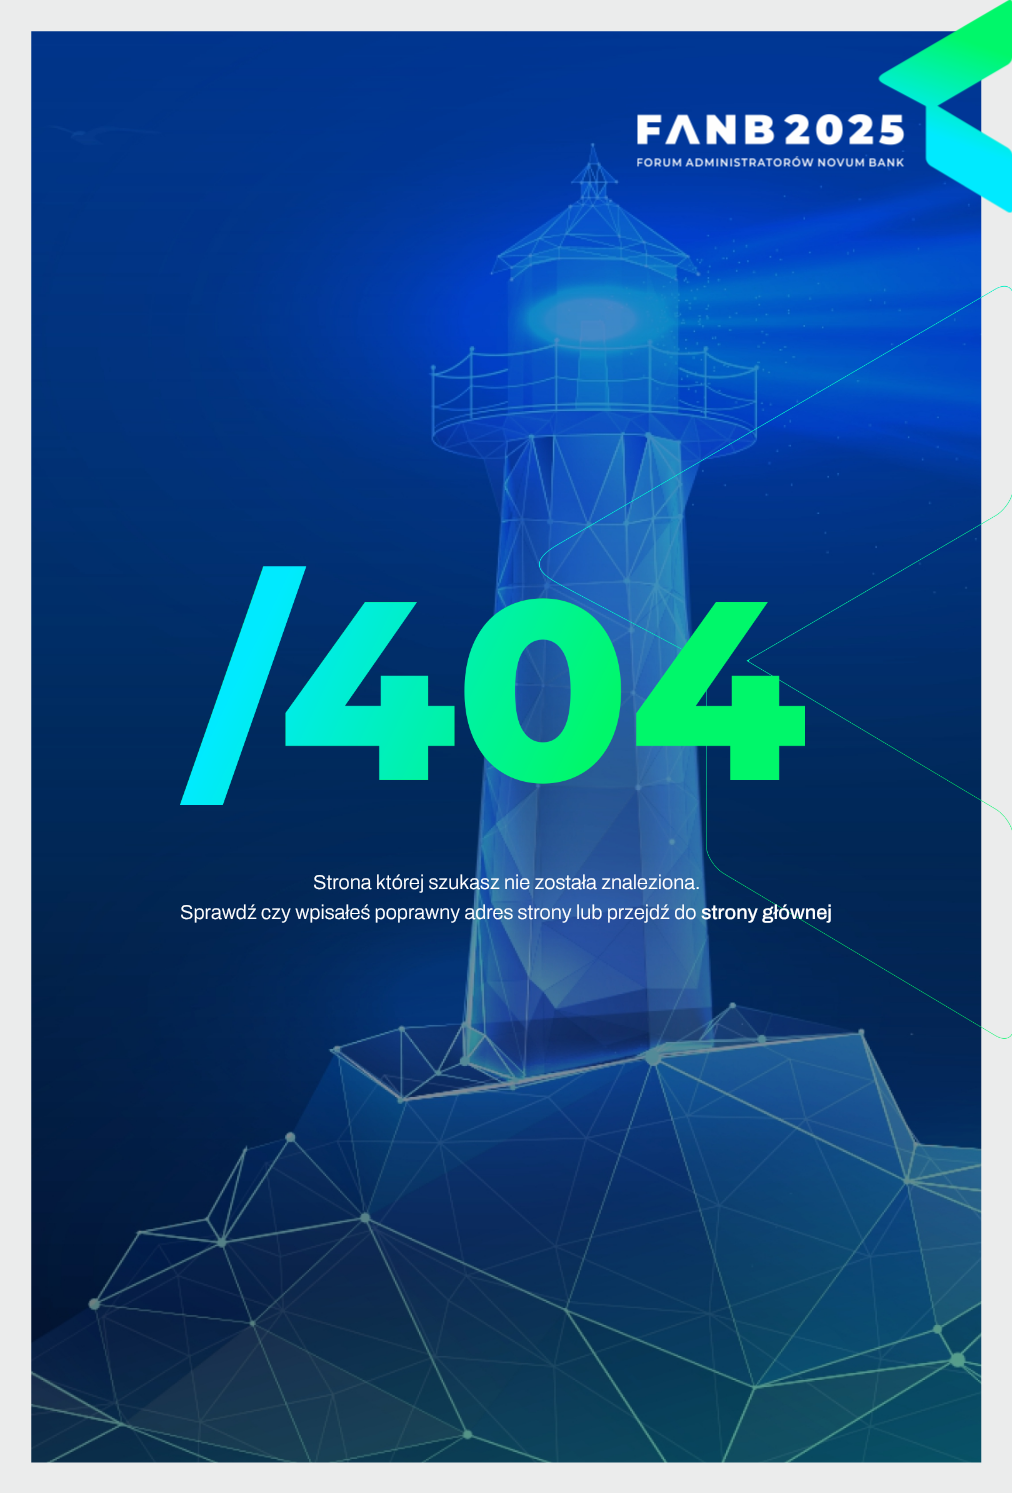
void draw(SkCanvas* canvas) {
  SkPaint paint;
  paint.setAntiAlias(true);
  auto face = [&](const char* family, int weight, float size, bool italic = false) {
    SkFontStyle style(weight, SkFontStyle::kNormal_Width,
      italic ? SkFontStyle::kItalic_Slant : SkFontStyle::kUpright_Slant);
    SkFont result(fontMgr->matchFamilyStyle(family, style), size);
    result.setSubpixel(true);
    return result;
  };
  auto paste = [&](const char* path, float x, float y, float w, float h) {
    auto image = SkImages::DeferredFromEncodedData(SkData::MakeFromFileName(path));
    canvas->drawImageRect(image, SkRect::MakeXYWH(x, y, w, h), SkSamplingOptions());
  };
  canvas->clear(0xffebecec);
  paste("img/1.png", 31, 31, 951, 1432);
  paste("img/2.png", 637, 0, 375, 213);
  paste("img/3.png", 538, 285, 474, 754);
  paste("img/4.png", 180, 566, 625, 239);
  auto f0 = face("Archivo", 300, 20);
  paint.setColor(0xffffffff);
  canvas->drawString("Strona której szukasz nie została znaleziona.", 313, 889, f0, paint);
  canvas->drawString("Sprawdź czy wpisałeś poprawny adres strony lub przejdź do", 180, 919, f0, paint);
  auto f1 = face("Archivo", 500, 20);
  canvas->drawString("strony głównej", 701, 919, f1, paint);
}
